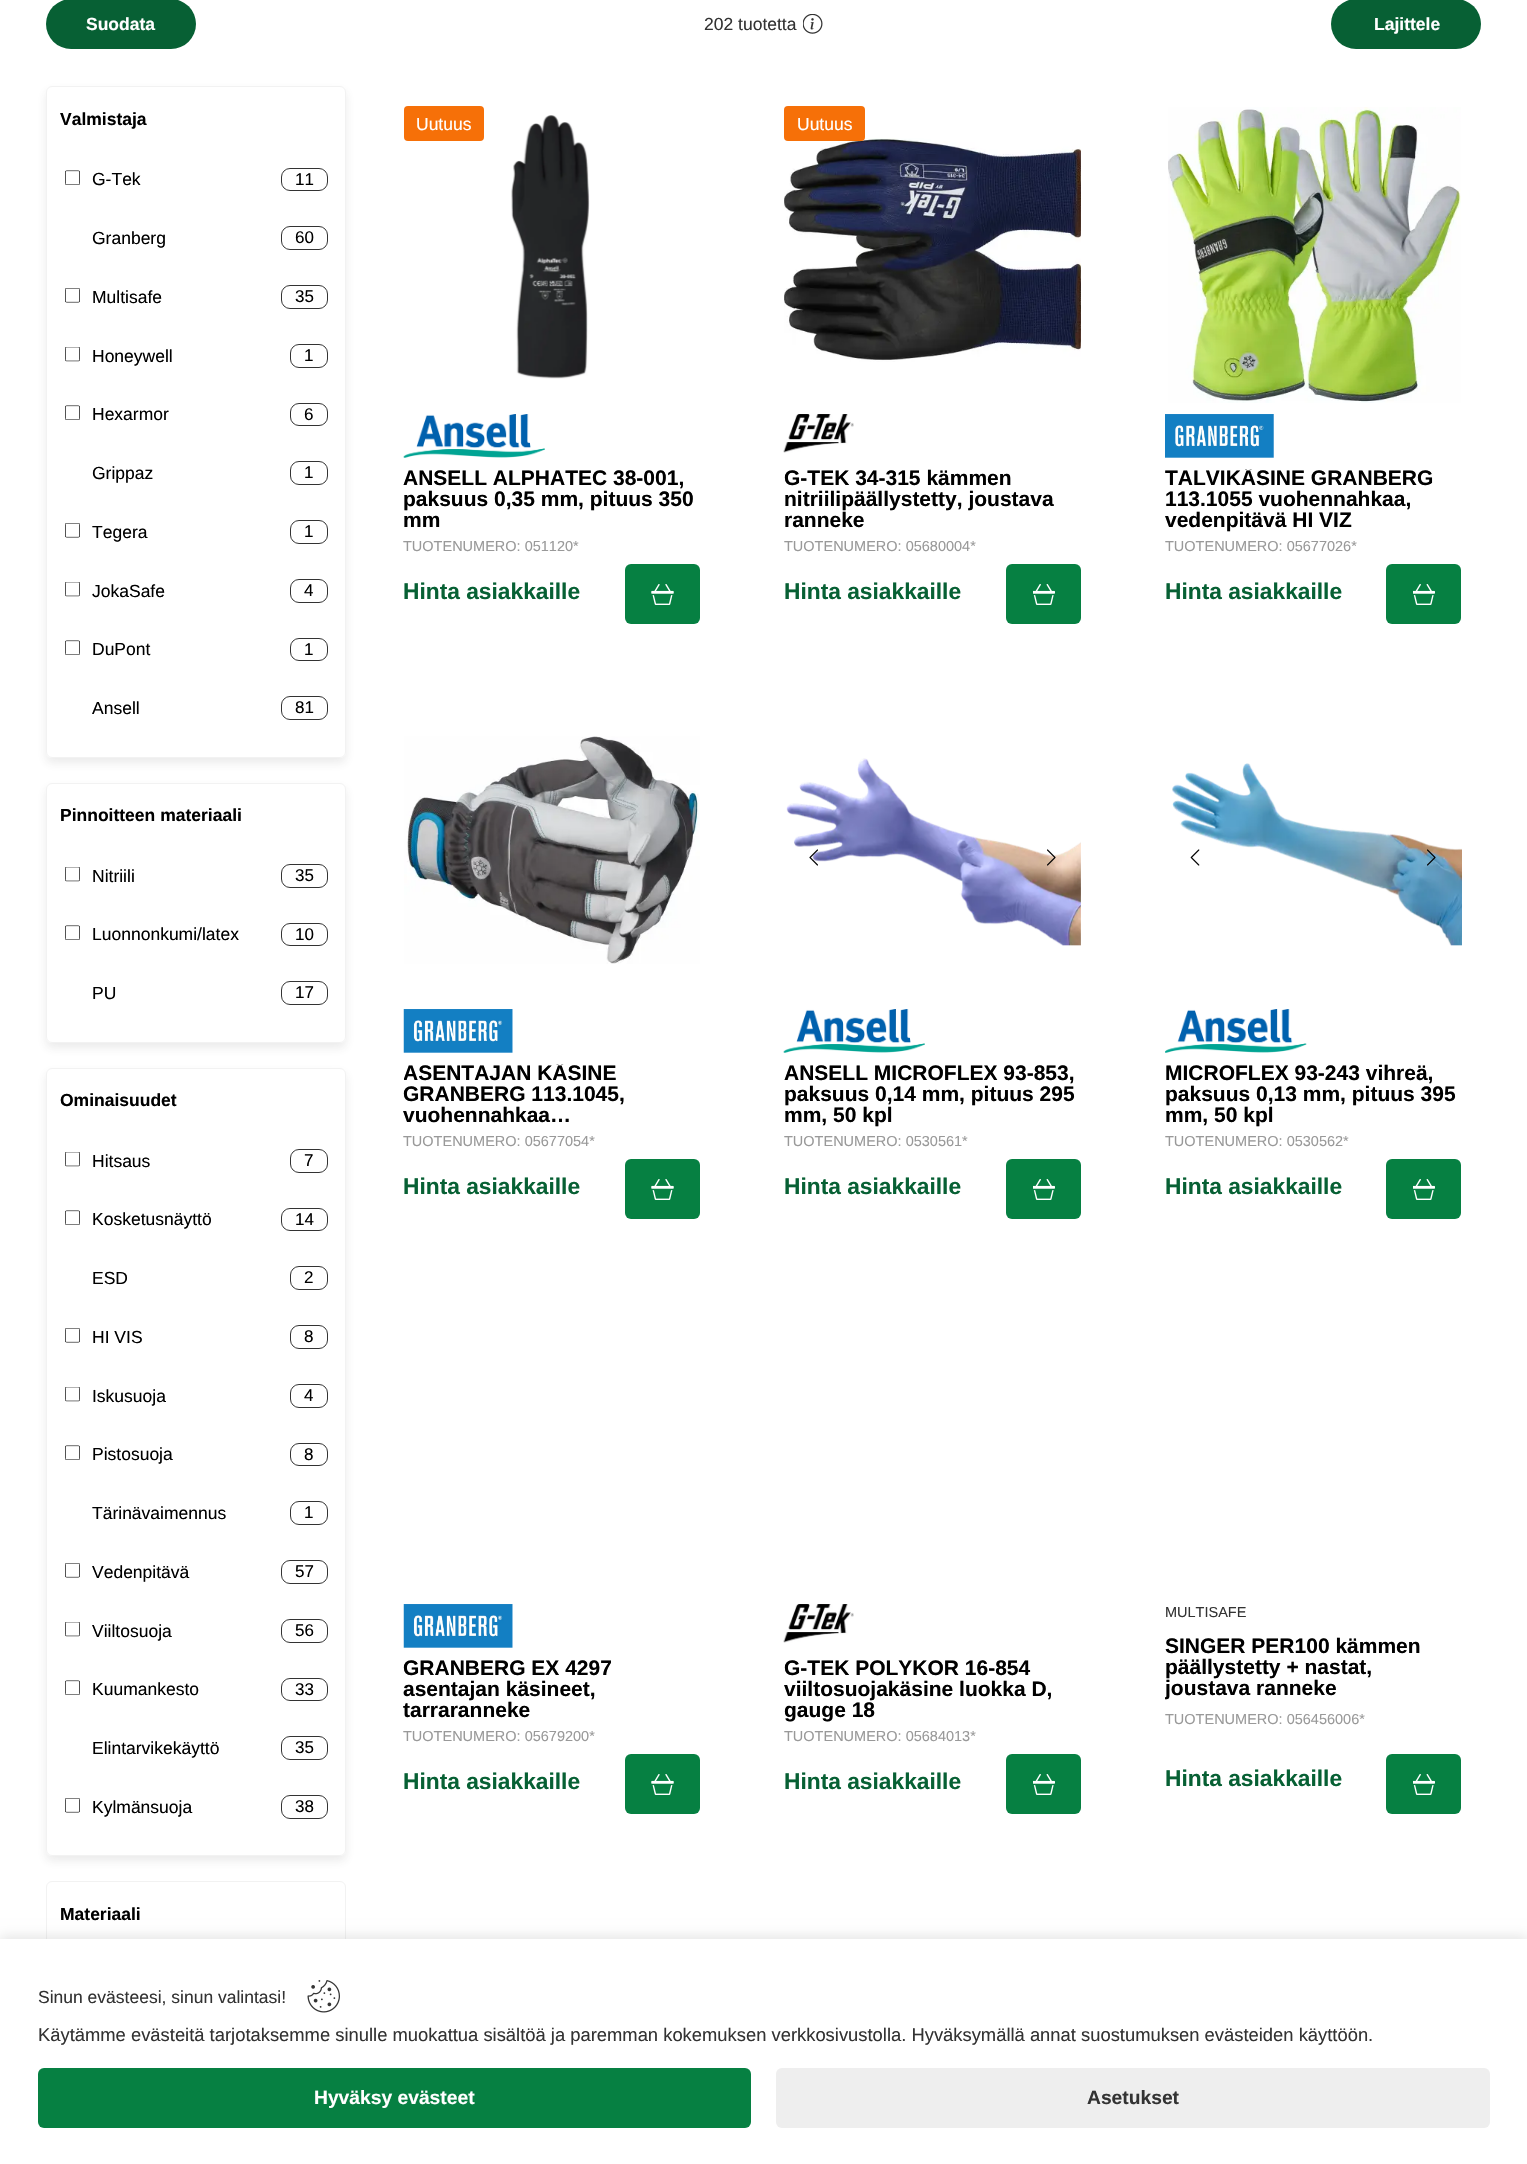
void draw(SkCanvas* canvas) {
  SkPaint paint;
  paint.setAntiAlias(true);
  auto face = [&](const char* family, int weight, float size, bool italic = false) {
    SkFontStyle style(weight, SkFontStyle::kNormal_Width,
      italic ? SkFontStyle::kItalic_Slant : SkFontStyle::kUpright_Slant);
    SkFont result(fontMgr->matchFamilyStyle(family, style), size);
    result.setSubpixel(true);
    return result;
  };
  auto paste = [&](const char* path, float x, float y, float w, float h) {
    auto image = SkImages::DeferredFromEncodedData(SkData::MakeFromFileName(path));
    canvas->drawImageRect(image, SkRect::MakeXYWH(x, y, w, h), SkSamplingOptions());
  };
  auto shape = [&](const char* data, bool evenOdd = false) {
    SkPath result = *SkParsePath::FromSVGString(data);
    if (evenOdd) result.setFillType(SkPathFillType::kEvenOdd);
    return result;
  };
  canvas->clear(0xffffffff);
  paint.setColor(0xff076034);
  canvas->drawRoundRect(SkRect::MakeXYWH(46, -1, 150, 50), 25, 25, paint);
  paste("img/1.png", 803, 14, 20, 20);
  canvas->drawRoundRect(SkRect::MakeXYWH(1331, -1, 150, 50), 25, 25, paint);
  canvas->save();
  canvas->clipPath(shape("M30 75H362V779H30ZM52 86H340C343.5 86 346 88.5 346 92V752C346 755.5 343.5 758 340 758H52C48.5 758 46 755.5 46 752V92C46 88.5 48.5 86 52 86Z", true), true);
  paint.setColor(0x1a393838);
  paint.setMaskFilter(SkMaskFilter::MakeBlur(kNormal_SkBlurStyle, 5));
  canvas->drawRoundRect(SkRect::MakeXYWH(46, 91, 300, 672), 6, 6, paint);
  paint.setMaskFilter(nullptr);
  canvas->restore();
  paint.setStroke(true);
  paint.setStrokeWidth(1);
  paint.setColor(0xfff2f2f2);
  canvas->drawRoundRect(SkRect::MakeXYWH(46.5f, 86.5f, 299, 671), 5.5f, 5.5f, paint);
  paste("img/2.png", 65, 170, 15, 15);
  paint.setColor(0xff333333);
  canvas->drawRoundRect(SkRect::MakeXYWH(281.5f, 168.5f, 46, 22), 8.5f, 8.5f, paint);
  canvas->drawRoundRect(SkRect::MakeXYWH(281.5f, 226.5f, 46, 23), 8.5f, 8.5f, paint);
  paste("img/3.png", 65, 288, 15, 15);
  canvas->drawRoundRect(SkRect::MakeXYWH(281.5f, 285.5f, 46, 23), 8.5f, 8.5f, paint);
  paste("img/4.png", 65, 347, 15, 15);
  canvas->drawRoundRect(SkRect::MakeXYWH(290.5f, 344.5f, 37, 23), 8.5f, 8.5f, paint);
  paste("img/2.png", 65, 405, 15, 15);
  canvas->drawRoundRect(SkRect::MakeXYWH(290.5f, 403.5f, 37, 22), 8.5f, 8.5f, paint);
  canvas->drawRoundRect(SkRect::MakeXYWH(290.5f, 461.5f, 37, 23), 8.5f, 8.5f, paint);
  paste("img/3.png", 65, 523, 15, 15);
  canvas->drawRoundRect(SkRect::MakeXYWH(290.5f, 520.5f, 37, 23), 8.5f, 8.5f, paint);
  paste("img/4.png", 65, 582, 15, 15);
  canvas->drawRoundRect(SkRect::MakeXYWH(290.5f, 579.5f, 37, 23), 8.5f, 8.5f, paint);
  paste("img/2.png", 65, 640, 15, 15);
  canvas->drawRoundRect(SkRect::MakeXYWH(290.5f, 638.5f, 37, 22), 8.5f, 8.5f, paint);
  canvas->drawRoundRect(SkRect::MakeXYWH(281.5f, 696.5f, 46, 23), 8.5f, 8.5f, paint);
  canvas->save();
  canvas->clipPath(shape("M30 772H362V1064H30ZM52 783H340C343.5 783 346 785.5 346 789V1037C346 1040.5 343.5 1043 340 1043H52C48.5 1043 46 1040.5 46 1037V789C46 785.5 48.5 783 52 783Z", true), true);
  paint.setStroke(false);
  paint.setColor(0x1a393838);
  paint.setMaskFilter(SkMaskFilter::MakeBlur(kNormal_SkBlurStyle, 5));
  canvas->drawRoundRect(SkRect::MakeXYWH(46, 788, 300, 260), 6, 6, paint);
  paint.setMaskFilter(nullptr);
  canvas->restore();
  paint.setStroke(true);
  paint.setColor(0xfff2f2f2);
  canvas->drawRoundRect(SkRect::MakeXYWH(46.5f, 783.5f, 299, 259), 5.5f, 5.5f, paint);
  paste("img/4.png", 65, 867, 15, 15);
  paint.setColor(0xff333333);
  canvas->drawRoundRect(SkRect::MakeXYWH(281.5f, 864.5f, 46, 23), 8.5f, 8.5f, paint);
  paste("img/2.png", 65, 925, 15, 15);
  canvas->drawRoundRect(SkRect::MakeXYWH(281.5f, 923.5f, 46, 22), 8.5f, 8.5f, paint);
  canvas->drawRoundRect(SkRect::MakeXYWH(281.5f, 981.5f, 46, 23), 8.5f, 8.5f, paint);
  canvas->save();
  canvas->clipPath(shape("M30 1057H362V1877H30ZM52 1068H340C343.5 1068 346 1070.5 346 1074V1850C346 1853.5 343.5 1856 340 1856H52C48.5 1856 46 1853.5 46 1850V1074C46 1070.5 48.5 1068 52 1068Z", true), true);
  paint.setStroke(false);
  paint.setColor(0x1a393838);
  paint.setMaskFilter(SkMaskFilter::MakeBlur(kNormal_SkBlurStyle, 5));
  canvas->drawRoundRect(SkRect::MakeXYWH(46, 1073, 300, 788), 6, 6, paint);
  paint.setMaskFilter(nullptr);
  canvas->restore();
  paint.setStroke(true);
  paint.setColor(0xfff2f2f2);
  canvas->drawRoundRect(SkRect::MakeXYWH(46.5f, 1068.5f, 299, 787), 5.5f, 5.5f, paint);
  paste("img/4.png", 65, 1152, 15, 15);
  paint.setColor(0xff333333);
  canvas->drawRoundRect(SkRect::MakeXYWH(290.5f, 1149.5f, 37, 23), 8.5f, 8.5f, paint);
  paste("img/2.png", 65, 1210, 15, 15);
  canvas->drawRoundRect(SkRect::MakeXYWH(281.5f, 1208.5f, 46, 22), 8.5f, 8.5f, paint);
  canvas->drawRoundRect(SkRect::MakeXYWH(290.5f, 1266.5f, 37, 23), 8.5f, 8.5f, paint);
  paste("img/3.png", 65, 1328, 15, 15);
  canvas->drawRoundRect(SkRect::MakeXYWH(290.5f, 1325.5f, 37, 23), 8.5f, 8.5f, paint);
  paste("img/4.png", 65, 1387, 15, 15);
  canvas->drawRoundRect(SkRect::MakeXYWH(290.5f, 1384.5f, 37, 23), 8.5f, 8.5f, paint);
  paste("img/2.png", 65, 1445, 15, 15);
  canvas->drawRoundRect(SkRect::MakeXYWH(290.5f, 1443.5f, 37, 22), 8.5f, 8.5f, paint);
  canvas->drawRoundRect(SkRect::MakeXYWH(290.5f, 1501.5f, 37, 23), 8.5f, 8.5f, paint);
  paste("img/3.png", 65, 1563, 15, 15);
  canvas->drawRoundRect(SkRect::MakeXYWH(281.5f, 1560.5f, 46, 23), 8.5f, 8.5f, paint);
  paste("img/4.png", 65, 1622, 15, 15);
  canvas->drawRoundRect(SkRect::MakeXYWH(281.5f, 1619.5f, 46, 23), 8.5f, 8.5f, paint);
  paste("img/2.png", 65, 1680, 15, 15);
  canvas->drawRoundRect(SkRect::MakeXYWH(281.5f, 1678.5f, 46, 22), 8.5f, 8.5f, paint);
  canvas->drawRoundRect(SkRect::MakeXYWH(281.5f, 1736.5f, 46, 23), 8.5f, 8.5f, paint);
  paste("img/3.png", 65, 1798, 15, 15);
  canvas->drawRoundRect(SkRect::MakeXYWH(281.5f, 1795.5f, 46, 23), 8.5f, 8.5f, paint);
  paint.setColor(0xfff2f2f2);
  canvas->drawRoundRect(SkRect::MakeXYWH(46.5f, 1881.5f, 299, 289), 5.5f, 5.5f, paint);
  paint.setStroke(false);
  paint.setColor(0xfff67008);
  canvas->drawRoundRect(SkRect::MakeXYWH(404, 106, 80, 35), 4, 4, paint);
  paste("img/5.png", 511, 115, 79, 264);
  paste("img/6.png", 403, 414, 142, 44);
  paint.setColor(0xff068042);
  canvas->drawRoundRect(SkRect::MakeXYWH(625, 564, 75, 60), 6, 6, paint);
  paste("img/7.png", 651, 584, 23, 21);
  paste("img/8.png", 784, 138, 297, 224);
  paint.setColor(0xfff67008);
  canvas->drawRoundRect(SkRect::MakeXYWH(784, 106, 81, 35), 4, 4, paint);
  paste("img/9.png", 783, 414, 71, 39);
  paint.setColor(0xff068042);
  canvas->drawRoundRect(SkRect::MakeXYWH(1006, 564, 75, 60), 6, 6, paint);
  paste("img/10.png", 1033, 584, 22, 21);
  paste("img/11.png", 1168, 107, 293, 296);
  paste("img/12.png", 1165, 414, 109, 44);
  canvas->drawRoundRect(SkRect::MakeXYWH(1386, 564, 75, 60), 6, 6, paint);
  paste("img/10.png", 1413, 584, 22, 21);
  paste("img/13.png", 404, 736, 296, 228);
  paste("img/14.png", 403, 1009, 110, 44);
  canvas->drawRoundRect(SkRect::MakeXYWH(625, 1159, 75, 60), 6, 6, paint);
  paste("img/7.png", 651, 1179, 23, 21);
  paste("img/15.png", 786, 758, 295, 188);
  paste("img/16.png", 809, 849, 9, 17);
  paste("img/17.png", 1047, 849, 9, 17);
  paste("img/18.png", 783, 1009, 142, 44);
  canvas->drawRoundRect(SkRect::MakeXYWH(1006, 1159, 75, 60), 6, 6, paint);
  paste("img/10.png", 1033, 1179, 22, 21);
  paste("img/19.png", 1172, 763, 290, 183);
  paste("img/20.png", 1190, 849, 10, 17);
  paste("img/21.png", 1427, 849, 9, 17);
  paste("img/22.png", 1165, 1009, 142, 44);
  canvas->drawRoundRect(SkRect::MakeXYWH(1386, 1159, 75, 60), 6, 6, paint);
  paste("img/10.png", 1413, 1179, 22, 21);
  paste("img/14.png", 403, 1604, 110, 44);
  canvas->drawRoundRect(SkRect::MakeXYWH(625, 1754, 75, 60), 6, 6, paint);
  paste("img/7.png", 651, 1774, 23, 21);
  paste("img/9.png", 783, 1604, 71, 39);
  canvas->drawRoundRect(SkRect::MakeXYWH(1006, 1754, 75, 60), 6, 6, paint);
  paste("img/10.png", 1033, 1774, 22, 21);
  canvas->drawRoundRect(SkRect::MakeXYWH(1386, 1754, 75, 60), 6, 6, paint);
  paste("img/10.png", 1413, 1774, 22, 21);
  paint.setColor(0x1a000000);
  paint.setMaskFilter(SkMaskFilter::MakeBlur(kNormal_SkBlurStyle, 6));
  canvas->drawRect(SkRect::MakeXYWH(0, 1936, 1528, 227), paint);
  paint.setMaskFilter(nullptr);
  paint.setColor(0xffffffff);
  canvas->drawRect(SkRect::MakeXYWH(0, 1939, 1527, 225), paint);
  paste("img/23.png", 307, 1980, 33, 33);
  paint.setColor(0xff068042);
  canvas->drawRoundRect(SkRect::MakeXYWH(38, 2068, 713, 60), 6, 6, paint);
  paint.setColor(0xffeeeeee);
  canvas->drawRoundRect(SkRect::MakeXYWH(776, 2068, 714, 60), 6, 6, paint);
  auto f0 = face("Liberation Sans", 700, 17.5f);
  paint.setColor(0xffffffff);
  canvas->drawString("Suodata", 86, 30, f0, paint);
  auto f1 = face("Liberation Sans", 400, 17.5f);
  paint.setColor(0xff333333);
  canvas->drawString("202 tuotetta", 704, 30, f1, paint);
  paint.setColor(0xffffffff);
  canvas->drawString("Lajittele", 1374, 30, f0, paint);
  paint.setColor(0xff000000);
  canvas->drawString("Valmistaja", 60, 125, f0, paint);
  canvas->drawString("G-Tek", 92, 185, f1, paint);
  auto f2 = face("Liberation Sans", 400, 17);
  canvas->drawString("11", 295, 185, f2, paint);
  canvas->drawString("Granberg", 92, 244, f1, paint);
  canvas->drawString("60", 295, 243, f2, paint);
  canvas->drawString("Multisafe", 92, 303, f1, paint);
  canvas->drawString("35", 295, 302, f2, paint);
  canvas->drawString("Honeywell", 92, 362, f1, paint);
  canvas->drawString("1", 304, 361, f2, paint);
  canvas->drawString("Hexarmor", 92, 420, f1, paint);
  canvas->drawString("6", 304, 420, f2, paint);
  canvas->drawString("Grippaz", 92, 479, f1, paint);
  canvas->drawString("1", 304, 478, f2, paint);
  canvas->drawString("Tegera", 92, 538, f1, paint);
  canvas->drawString("1", 304, 537, f2, paint);
  canvas->drawString("JokaSafe", 92, 597, f1, paint);
  canvas->drawString("4", 304, 596, f2, paint);
  canvas->drawString("DuPont", 92, 655, f1, paint);
  canvas->drawString("1", 304, 655, f2, paint);
  canvas->drawString("Ansell", 92, 714, f1, paint);
  canvas->drawString("81", 295, 713, f2, paint);
  canvas->drawString("Pinnoitteen materiaali", 60, 821, f0, paint);
  canvas->drawString("Nitriili", 92, 882, f1, paint);
  canvas->drawString("35", 295, 881, f2, paint);
  canvas->drawString("Luonnonkumi/latex", 92, 940, f1, paint);
  canvas->drawString("10", 295, 940, f2, paint);
  canvas->drawString("PU", 92, 999, f1, paint);
  canvas->drawString("17", 295, 998, f2, paint);
  canvas->drawString("Ominaisuudet", 60, 1106, f0, paint);
  canvas->drawString("Hitsaus", 92, 1167, f1, paint);
  canvas->drawString("7", 304, 1166, f2, paint);
  canvas->drawString("Kosketusnäyttö", 92, 1225, f1, paint);
  canvas->drawString("14", 295, 1225, f2, paint);
  canvas->drawString("ESD", 92, 1284, f1, paint);
  canvas->drawString("2", 304, 1283, f2, paint);
  canvas->drawString("HI VIS", 92, 1343, f1, paint);
  canvas->drawString("8", 304, 1342, f2, paint);
  canvas->drawString("Iskusuoja", 92, 1402, f1, paint);
  canvas->drawString("4", 304, 1401, f2, paint);
  canvas->drawString("Pistosuoja", 92, 1460, f1, paint);
  canvas->drawString("8", 304, 1460, f2, paint);
  canvas->drawString("Tärinävaimennus", 92, 1519, f1, paint);
  canvas->drawString("1", 304, 1518, f2, paint);
  canvas->drawString("Vedenpitävä", 92, 1578, f1, paint);
  canvas->drawString("57", 295, 1577, f2, paint);
  canvas->drawString("Viiltosuoja", 92, 1637, f1, paint);
  canvas->drawString("56", 295, 1636, f2, paint);
  canvas->drawString("Kuumankesto", 92, 1695, f1, paint);
  canvas->drawString("33", 295, 1695, f2, paint);
  canvas->drawString("Elintarvikekäyttö", 92, 1754, f1, paint);
  canvas->drawString("35", 295, 1753, f2, paint);
  canvas->drawString("Kylmänsuoja", 92, 1813, f1, paint);
  canvas->drawString("38", 295, 1812, f2, paint);
  canvas->drawString("Materiaali", 60, 1920, f0, paint);
  paint.setColor(0xffffffff);
  canvas->drawString("Uutuus", 416, 130, f1, paint);
  auto f3 = face("Liberation Sans", 700, 21);
  paint.setColor(0xff000000);
  {
    const struct { const char* s; float x, y; } items[] = {
      {"ANSELL ALPHATEC 38-001,", 403, 485},
      {"paksuus 0,35 mm, pituus 350", 403, 506},
      {"mm", 403, 527},
    };
    for (auto [s, x, y] : items) {
      canvas->drawString(s, x, y, f3, paint);
    }
  }
  auto f4 = face("Liberation Sans", 400, 14.5f);
  paint.setColor(0xff999999);
  canvas->drawString("TUOTENUMERO: 051120*", 403, 551, f4, paint);
  auto f5 = face("Liberation Sans", 700, 22.75f);
  paint.setColor(0xff076034);
  canvas->drawString("Hinta asiakkaille", 403, 599, f5, paint);
  paint.setColor(0xffffffff);
  canvas->drawString("Uutuus", 797, 130, f1, paint);
  paint.setColor(0xff000000);
  {
    const struct { const char* s; float x, y; } items[] = {
      {"G-TEK 34-315 kämmen", 784, 485},
      {"nitriilipäällystetty, joustava", 784, 506},
      {"ranneke", 784, 527},
    };
    for (auto [s, x, y] : items) {
      canvas->drawString(s, x, y, f3, paint);
    }
  }
  paint.setColor(0xff999999);
  canvas->drawString("TUOTENUMERO: 05680004*", 784, 551, f4, paint);
  paint.setColor(0xff076034);
  canvas->drawString("Hinta asiakkaille", 784, 599, f5, paint);
  canvas->save();
  canvas->clipRect(SkRect::MakeXYWH(1165, 469, 296, 64));
  paint.setColor(0xff000000);
  canvas->drawString("TALVIKÄSINE GRANBERG", 1165, 485, f3, paint);
  canvas->restore();
  canvas->drawString("113.1055 vuohennahkaa,", 1165, 506, f3, paint);
  canvas->drawString("vedenpitävä HI VIZ", 1165, 527, f3, paint);
  paint.setColor(0xff999999);
  canvas->drawString("TUOTENUMERO: 05677026*", 1165, 551, f4, paint);
  paint.setColor(0xff076034);
  canvas->drawString("Hinta asiakkaille", 1165, 599, f5, paint);
  canvas->save();
  canvas->clipRect(SkRect::MakeXYWH(404, 1064, 296, 64));
  paint.setColor(0xff000000);
  canvas->drawString("ASENTAJAN KÄSINE", 403, 1080, f3, paint);
  canvas->restore();
  canvas->drawString("GRANBERG 113.1045,", 403, 1101, f3, paint);
  canvas->drawString("vuohennahkaa…", 403, 1122, f3, paint);
  paint.setColor(0xff999999);
  canvas->drawString("TUOTENUMERO: 05677054*", 403, 1146, f4, paint);
  paint.setColor(0xff076034);
  canvas->drawString("Hinta asiakkaille", 403, 1194, f5, paint);
  paint.setColor(0xff000000);
  {
    const struct { const char* s; float x, y; } items[] = {
      {"ANSELL MICROFLEX 93-853,", 784, 1080},
      {"paksuus 0,14 mm, pituus 295", 784, 1101},
      {"mm, 50 kpl", 784, 1122},
    };
    for (auto [s, x, y] : items) {
      canvas->drawString(s, x, y, f3, paint);
    }
  }
  paint.setColor(0xff999999);
  canvas->drawString("TUOTENUMERO: 0530561*", 784, 1146, f4, paint);
  paint.setColor(0xff076034);
  canvas->drawString("Hinta asiakkaille", 784, 1194, f5, paint);
  paint.setColor(0xff000000);
  {
    const struct { const char* s; float x, y; } items[] = {
      {"MICROFLEX 93-243 vihreä,", 1165, 1080},
      {"paksuus 0,13 mm, pituus 395", 1165, 1101},
      {"mm, 50 kpl", 1165, 1122},
    };
    for (auto [s, x, y] : items) {
      canvas->drawString(s, x, y, f3, paint);
    }
  }
  paint.setColor(0xff999999);
  canvas->drawString("TUOTENUMERO: 0530562*", 1165, 1146, f4, paint);
  paint.setColor(0xff076034);
  canvas->drawString("Hinta asiakkaille", 1165, 1194, f5, paint);
  paint.setColor(0xff000000);
  {
    const struct { const char* s; float x, y; } items[] = {
      {"GRANBERG EX 4297", 403, 1675},
      {"asentajan käsineet,", 403, 1696},
      {"tarraranneke", 403, 1717},
    };
    for (auto [s, x, y] : items) {
      canvas->drawString(s, x, y, f3, paint);
    }
  }
  paint.setColor(0xff999999);
  canvas->drawString("TUOTENUMERO: 05679200*", 403, 1741, f4, paint);
  paint.setColor(0xff076034);
  canvas->drawString("Hinta asiakkaille", 403, 1789, f5, paint);
  paint.setColor(0xff000000);
  {
    const struct { const char* s; float x, y; } items[] = {
      {"G-TEK POLYKOR 16-854", 784, 1675},
      {"viiltosuojakäsine luokka D,", 784, 1696},
      {"gauge 18", 784, 1717},
    };
    for (auto [s, x, y] : items) {
      canvas->drawString(s, x, y, f3, paint);
    }
  }
  paint.setColor(0xff999999);
  canvas->drawString("TUOTENUMERO: 05684013*", 784, 1741, f4, paint);
  paint.setColor(0xff076034);
  canvas->drawString("Hinta asiakkaille", 784, 1789, f5, paint);
  paint.setColor(0xff333333);
  canvas->drawString("MULTISAFE", 1165, 1617, f4, paint);
  paint.setColor(0xff000000);
  canvas->drawString("SINGER PER100 kämmen", 1165, 1653, f3, paint);
  canvas->drawString("päällystetty + nastat,", 1165, 1674, f3, paint);
  canvas->save();
  canvas->clipRect(SkRect::MakeXYWH(1165, 1636, 296, 64));
  canvas->drawString("joustava ranneke", 1165, 1695, f3, paint);
  canvas->restore();
  paint.setColor(0xff999999);
  canvas->drawString("TUOTENUMERO: 056456006*", 1165, 1724, f4, paint);
  paint.setColor(0xff076034);
  canvas->drawString("Hinta asiakkaille", 1165, 1786, f5, paint);
  paint.setColor(0xff333333);
  canvas->drawString("Sinun evästeesi, sinun valintasi!", 38, 2003, f1, paint);
  auto f6 = face("Liberation Sans", 400, 18.38f);
  canvas->drawString("Käytämme evästeitä tarjotaksemme sinulle muokattua sisältöä ja paremman kokemuksen verkkosivustolla. Hyväksymällä annat suostumuksen evästeiden käyttöön.", 38, 2041, f6, paint);
  auto f7 = face("Liberation Sans", 700, 19.25f);
  paint.setColor(0xffffffff);
  canvas->drawString("Hyväksy evästeet", 314, 2104, f7, paint);
  paint.setColor(0xff333333);
  canvas->drawString("Asetukset", 1087, 2104, f7, paint);
}
